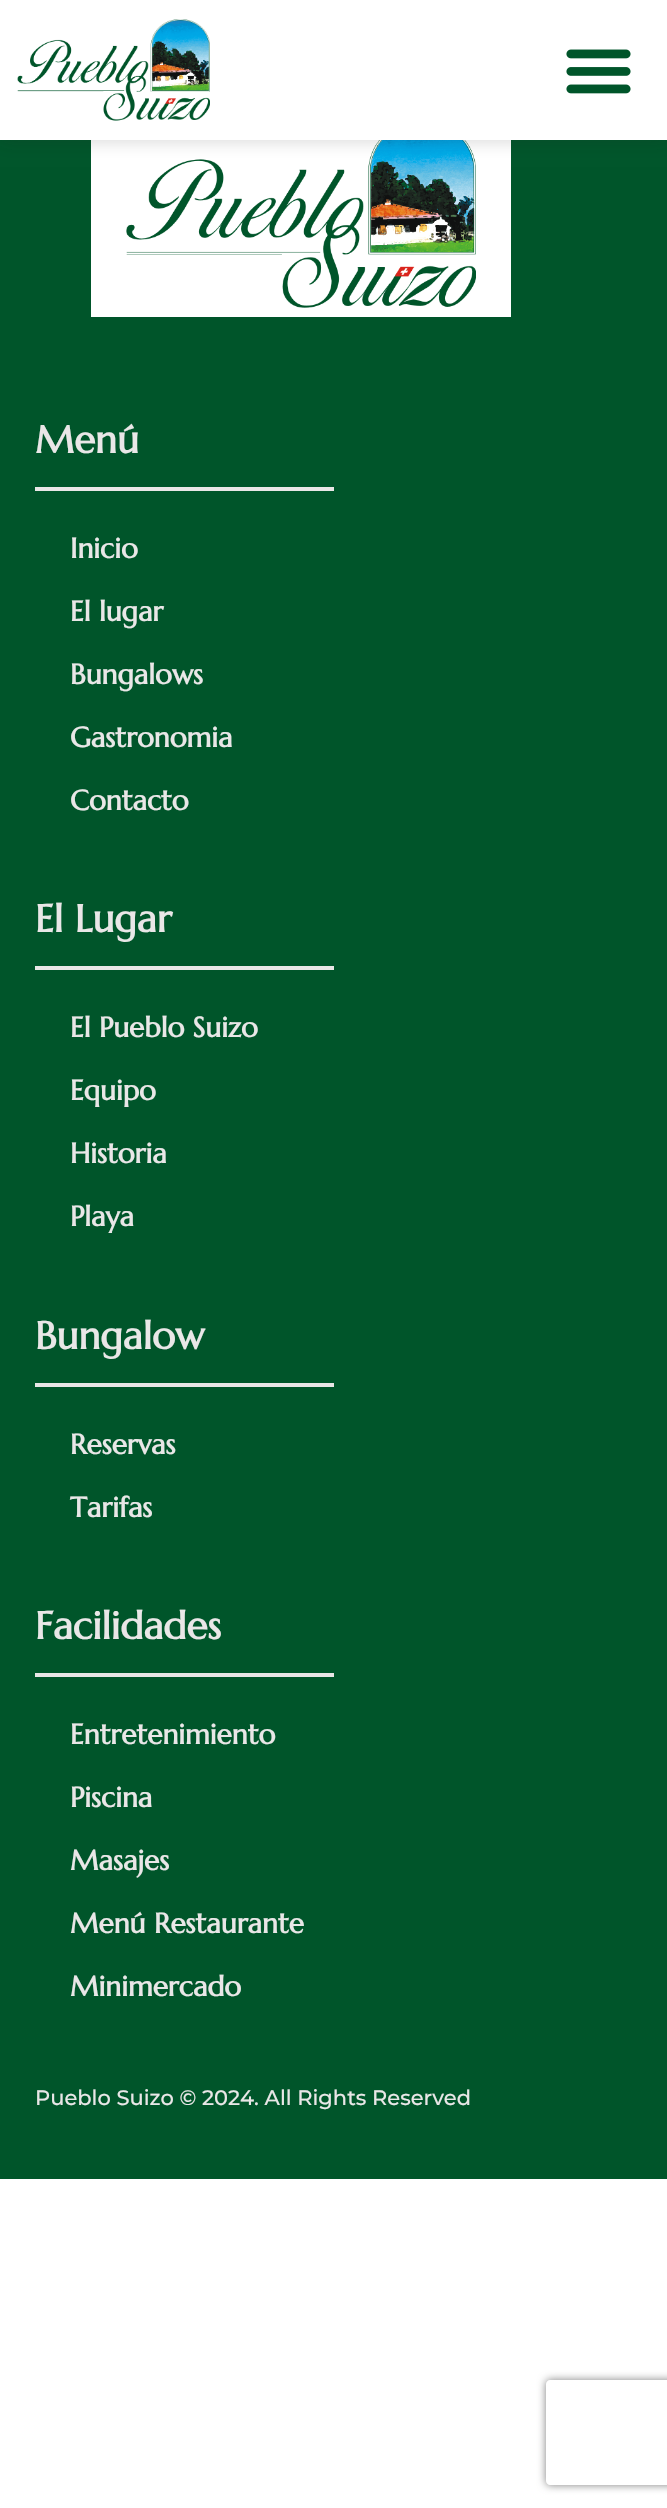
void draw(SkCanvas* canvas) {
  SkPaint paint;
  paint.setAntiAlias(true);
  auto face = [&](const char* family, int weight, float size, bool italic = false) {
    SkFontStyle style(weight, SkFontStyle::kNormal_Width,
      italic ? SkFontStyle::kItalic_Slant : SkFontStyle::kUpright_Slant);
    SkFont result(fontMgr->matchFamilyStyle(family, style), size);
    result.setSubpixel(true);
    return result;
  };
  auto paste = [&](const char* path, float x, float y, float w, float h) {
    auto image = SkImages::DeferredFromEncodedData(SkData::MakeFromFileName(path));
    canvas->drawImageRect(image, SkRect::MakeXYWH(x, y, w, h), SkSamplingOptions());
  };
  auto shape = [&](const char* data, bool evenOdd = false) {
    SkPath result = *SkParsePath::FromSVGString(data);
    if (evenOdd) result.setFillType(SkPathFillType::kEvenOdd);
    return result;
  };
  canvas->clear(0xffffffff);
  paint.setColor(0xff00552a);
  canvas->drawRect(SkRect::MakeXYWH(0, 140, 667, 2039), paint);
  paint.setColor(0xffffffff);
  canvas->drawRect(SkRect::MakeXYWH(91, 140, 420, 177), paint);
  paste("img/3.png", 126, 140, 350, 168);
  paint.setColor(0x33222222);
  paint.setMaskFilter(SkMaskFilter::MakeBlur(kNormal_SkBlurStyle, 9));
  canvas->drawRect(SkRect::MakeXYWH(0, 0, 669, 140), paint);
  paint.setMaskFilter(nullptr);
  paint.setColor(0xffffffff);
  canvas->drawRect(SkRect::MakeXYWH(0, 0, 667, 140), paint);
  paste("img/1.png", 17, 19, 193, 102);
  paste("img/2.png", 566, 49, 65, 45);
  {
    const struct { float x, y, w, h; SkColor color; } items[] = {
      {35, 487, 299, 4, 0xffe9e7e7},
      {35, 966, 299, 4, 0xffe9e7e7},
      {35, 1383, 299, 4, 0xffe9e7e7},
      {35, 1673, 299, 4, 0xffe9e7e7},
    };
    for (auto [x, y, w, h, color] : items) {
      paint.setColor(color);
      canvas->drawRect(SkRect::MakeXYWH(x, y, w, h), paint);
    }
  }
  canvas->save();
  canvas->clipPath(shape("M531 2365H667V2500H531ZM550 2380H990C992 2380 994 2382 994 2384V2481C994 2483 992 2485 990 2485H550C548 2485 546 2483 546 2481V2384C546 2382 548 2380 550 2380Z", true), true);
  paint.setColor(0xff808080);
  paint.setMaskFilter(SkMaskFilter::MakeBlur(kNormal_SkBlurStyle, 4.5f));
  canvas->drawRoundRect(SkRect::MakeXYWH(546, 2380, 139, 105), 4, 4, paint);
  paint.setMaskFilter(nullptr);
  canvas->restore();
  auto f0 = face("Marcellus", 700, 38.5f);
  paint.setColor(0xffe9e7e7);
  canvas->drawString("Menú", 35, 453, f0, paint);
  auto f1 = face("Marcellus", 700, 28);
  {
    const struct { const char* s; float x, y; } items[] = {
      {"Inicio", 70, 558},
      {"El lugar", 70, 621},
      {"Bungalows", 70, 684},
      {"Gastronomia", 70, 747},
      {"Contacto", 70, 810},
    };
    for (auto [s, x, y] : items) {
      canvas->drawString(s, x, y, f1, paint);
    }
  }
  canvas->drawString("El Lugar", 35, 932, f0, paint);
  {
    const struct { const char* s; float x, y; } items[] = {
      {"El Pueblo Suizo", 70, 1037},
      {"Equipo", 70, 1100},
      {"Historia", 70, 1163},
      {"Playa", 70, 1226},
    };
    for (auto [s, x, y] : items) {
      canvas->drawString(s, x, y, f1, paint);
    }
  }
  canvas->drawString("Bungalow", 35, 1349, f0, paint);
  canvas->drawString("Reservas", 70, 1454, f1, paint);
  canvas->drawString("Tarifas", 70, 1517, f1, paint);
  canvas->drawString("Facilidades", 35, 1639, f0, paint);
  {
    const struct { const char* s; float x, y; } items[] = {
      {"Entretenimiento", 70, 1744},
      {"Piscina", 70, 1807},
      {"Masajes", 70, 1870},
      {"Menú Restaurante", 70, 1933},
      {"Minimercado", 70, 1996},
    };
    for (auto [s, x, y] : items) {
      canvas->drawString(s, x, y, f1, paint);
    }
  }
  auto f2 = face("Montserrat", 500, 21);
  canvas->drawString("Pueblo Suizo © 2024. All Rights Reserved", 35, 2105, f2, paint);
}
